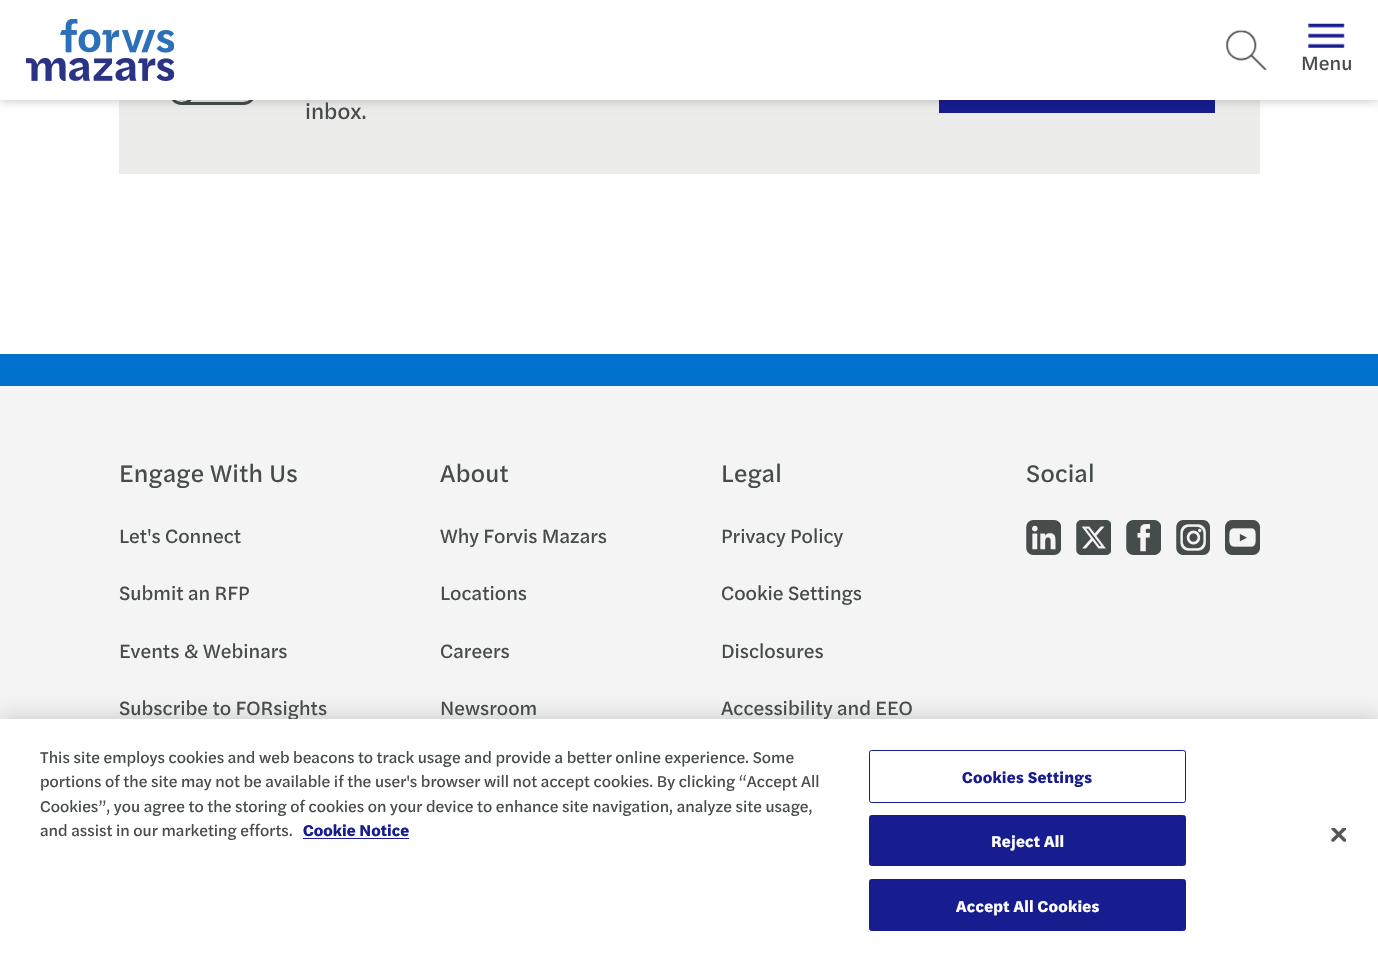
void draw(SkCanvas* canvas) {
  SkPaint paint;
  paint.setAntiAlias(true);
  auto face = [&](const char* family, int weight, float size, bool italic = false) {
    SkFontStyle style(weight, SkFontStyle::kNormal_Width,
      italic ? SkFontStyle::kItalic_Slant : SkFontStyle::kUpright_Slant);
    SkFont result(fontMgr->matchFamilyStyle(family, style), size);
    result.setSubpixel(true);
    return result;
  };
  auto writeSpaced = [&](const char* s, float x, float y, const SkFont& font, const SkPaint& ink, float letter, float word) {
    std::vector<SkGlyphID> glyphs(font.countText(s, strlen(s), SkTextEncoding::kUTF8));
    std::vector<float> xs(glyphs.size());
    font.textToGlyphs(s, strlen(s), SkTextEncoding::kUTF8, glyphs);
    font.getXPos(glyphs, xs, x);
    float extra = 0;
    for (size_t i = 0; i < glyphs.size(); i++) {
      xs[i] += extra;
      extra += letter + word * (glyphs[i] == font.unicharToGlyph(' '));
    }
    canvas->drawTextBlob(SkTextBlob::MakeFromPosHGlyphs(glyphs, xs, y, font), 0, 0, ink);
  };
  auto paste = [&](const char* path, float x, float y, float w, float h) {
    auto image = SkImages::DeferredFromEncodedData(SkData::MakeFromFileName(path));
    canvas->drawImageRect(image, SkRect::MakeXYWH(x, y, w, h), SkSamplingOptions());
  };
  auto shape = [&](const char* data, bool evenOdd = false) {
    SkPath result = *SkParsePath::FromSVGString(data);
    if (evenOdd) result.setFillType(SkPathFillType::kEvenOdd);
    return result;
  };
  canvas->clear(0xffffffff);
  paint.setColor(0xffececeb);
  canvas->drawRect(SkRect::MakeXYWH(119, 100, 1141, 74), paint);
  paint.setStroke(true);
  paint.setStrokeWidth(2.8f);
  paint.setStrokeCap(SkPaint::kRound_Cap);
  paint.setStrokeJoin(SkPaint::kRound_Join);
  paint.setColor(0xff464b4b);
  canvas->drawPath(shape("M181.5 103.5H243.5C249.5 103.5 254.5 98.5 254.5 92V19H193V30.5"), paint);
  canvas->drawPath(shape("M193 92C193 98.5 188 103.5 181.5 103.5C175.5 103.5 170.5 98.5 170.5 92V30.5H193Z"), paint);
  paint.setStroke(false);
  paint.setColor(0xff171c8f);
  canvas->drawRect(SkRect::MakeXYWH(939, 100, 276, 13), paint);
  paint.setColor(0x40000000);
  paint.setMaskFilter(SkMaskFilter::MakeBlur(kNormal_SkBlurStyle, 5));
  canvas->drawRect(SkRect::MakeXYWH(0, -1, 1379, 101), paint);
  paint.setMaskFilter(nullptr);
  paint.setColor(0xffffffff);
  canvas->drawRect(SkRect::MakeXYWH(0, 0, 1378, 100), paint);
  paste("img/1.png", 26, 19, 148, 62);
  paste("img/2.png", 1226, 29, 41, 42);
  paste("img/3.png", 1308, 23, 37, 25);
  paint.setColor(0xfff4f4f4);
  canvas->drawRect(SkRect::MakeXYWH(0, 386, 1378, 333), paint);
  paint.setColor(0xff0072ce);
  canvas->drawRect(SkRect::MakeXYWH(0, 354, 1378, 32), paint);
  paste("img/4.png", 1026, 520, 35, 35);
  paste("img/5.png", 1076, 520, 35, 35);
  paste("img/6.png", 1126, 520, 35, 35);
  paste("img/7.png", 1176, 520, 34, 35);
  paste("img/8.png", 1225, 520, 35, 35);
  paint.setColor(0x33000000);
  paint.setMaskFilter(SkMaskFilter::MakeBlur(kNormal_SkBlurStyle, 11));
  canvas->drawRect(SkRect::MakeXYWH(0, 719, 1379, 237), paint);
  paint.setMaskFilter(nullptr);
  auto f0 = face("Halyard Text", 400, 20);
  paint.setColor(0xff464b4b);
  canvas->drawString("Menu", 1301, 70, f0, paint);
  auto f1 = face("Halyard Text", 400, 22.5f);
  canvas->drawString("inbox.", 305, 119, f1, paint);
  auto f2 = face("Halyard Text", 400, 25);
  writeSpaced("Engage With Us", 119, 482, f2, paint, 0.25f, 0);
  {
    const struct { const char* s; float x, y; } items[] = {
      {"Let's Connect", 119, 543},
      {"Submit an RFP", 119, 600},
      {"Events & Webinars", 119, 658},
      {"Subscribe to FORsights", 119, 715},
    };
    for (auto [s, x, y] : items) {
      canvas->drawString(s, x, y, f0, paint);
    }
  }
  writeSpaced("About", 440, 482, f2, paint, 0.25f, 0);
  {
    const struct { const char* s; float x, y; } items[] = {
      {"Why Forvis Mazars", 440, 543},
      {"Locations", 440, 600},
      {"Careers", 440, 658},
      {"Newsroom", 440, 715},
    };
    for (auto [s, x, y] : items) {
      canvas->drawString(s, x, y, f0, paint);
    }
  }
  writeSpaced("Legal", 721, 482, f2, paint, 0.25f, 0);
  {
    const struct { const char* s; float x, y; } items[] = {
      {"Privacy Policy", 721, 543},
      {"Cookie Settings", 721, 600},
      {"Disclosures", 721, 658},
      {"Accessibility and EEO", 721, 715},
    };
    for (auto [s, x, y] : items) {
      canvas->drawString(s, x, y, f0, paint);
    }
  }
  writeSpaced("Social", 1026, 482, f2, paint, 0.25f, 0);
  paint.setColor(0xffffffff);
  canvas->drawRect(SkRect::MakeXYWH(0, 719, 1378, 237), paint);
  auto f3 = face("Halyard Text", 400, 16.25f);
  paint.setColor(0xff464b4b);
  {
    const struct { const char* s; float x, y; } items[] = {
      {"This site employs cookies and web beacons to track usage and provide a better online experience. Some", 40, 763},
      {"portions of the site may not be available if the user's browser will not accept cookies. By clicking “Accept All", 40, 787},
      {"Cookies”, you agree to the storing of cookies on your device to enhance site navigation, analyze site usage,", 40, 812},
      {"and assist in our marketing efforts.", 40, 836},
    };
    for (auto [s, x, y] : items) {
      canvas->drawString(s, x, y, f3, paint);
    }
  }
  auto f4 = face("Halyard Text", 700, 16.25f);
  paint.setColor(0xff171c8f);
  canvas->drawString("Cookie Notice", 303, 836, f4, paint);
  canvas->drawRect(SkRect::MakeXYWH(303, 838, 106, 1), paint);
  paint.setStroke(true);
  paint.setStrokeWidth(1);
  paint.setStrokeCap(SkPaint::kButt_Cap);
  paint.setStrokeJoin(SkPaint::kMiter_Join);
  canvas->drawRoundRect(SkRect::MakeXYWH(869.5f, 750.5f, 316, 52), 2, 2, paint);
  paint.setStroke(false);
  writeSpaced("Cookies Settings", 962, 783, f4, paint, 0.2f, 0);
  canvas->drawRoundRect(SkRect::MakeXYWH(869.5f, 815.5f, 316, 50), 2, 2, paint);
  paint.setStroke(true);
  canvas->drawRoundRect(SkRect::MakeXYWH(869.5f, 815.5f, 316, 50), 2, 2, paint);
  paint.setStroke(false);
  paint.setColor(0xffffffff);
  writeSpaced("Reject All", 991, 847, f4, paint, 0.2f, 0);
  paint.setColor(0xff171c8f);
  canvas->drawRoundRect(SkRect::MakeXYWH(869.5f, 879.5f, 316, 51), 2, 2, paint);
  paint.setStroke(true);
  canvas->drawRoundRect(SkRect::MakeXYWH(869.5f, 879.5f, 316, 51), 2, 2, paint);
  paint.setStroke(false);
  paint.setColor(0xffffffff);
  writeSpaced("Accept All Cookies", 956, 912, f4, paint, 0.2f, 0);
  paste("img/9.png", 1331, 828, 15, 14);
}
